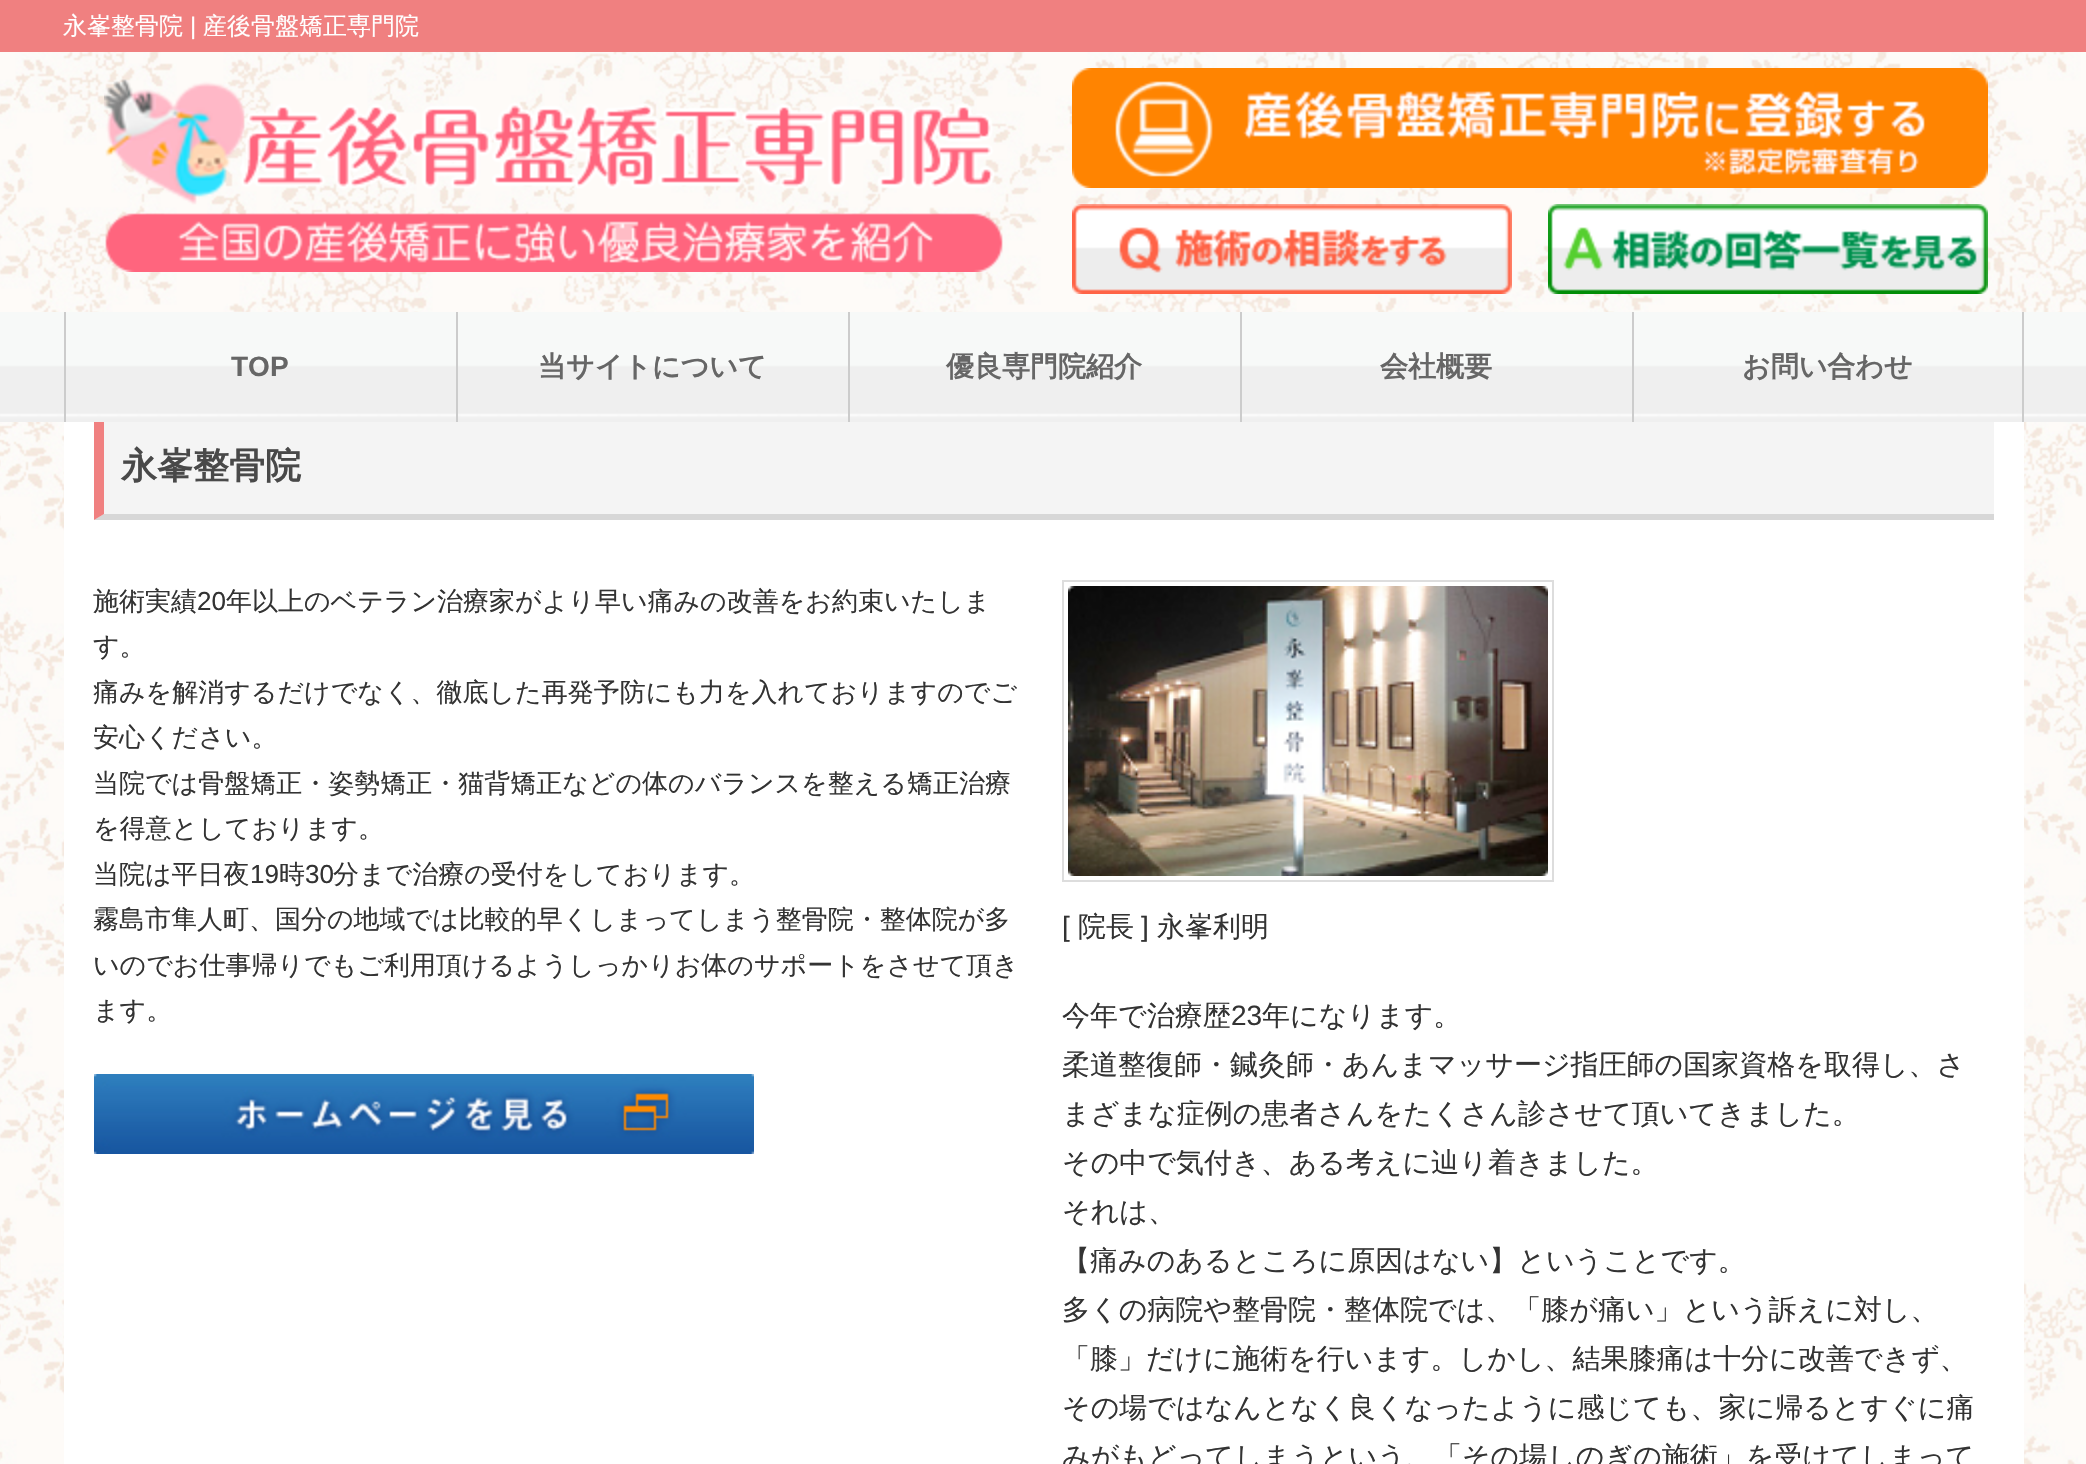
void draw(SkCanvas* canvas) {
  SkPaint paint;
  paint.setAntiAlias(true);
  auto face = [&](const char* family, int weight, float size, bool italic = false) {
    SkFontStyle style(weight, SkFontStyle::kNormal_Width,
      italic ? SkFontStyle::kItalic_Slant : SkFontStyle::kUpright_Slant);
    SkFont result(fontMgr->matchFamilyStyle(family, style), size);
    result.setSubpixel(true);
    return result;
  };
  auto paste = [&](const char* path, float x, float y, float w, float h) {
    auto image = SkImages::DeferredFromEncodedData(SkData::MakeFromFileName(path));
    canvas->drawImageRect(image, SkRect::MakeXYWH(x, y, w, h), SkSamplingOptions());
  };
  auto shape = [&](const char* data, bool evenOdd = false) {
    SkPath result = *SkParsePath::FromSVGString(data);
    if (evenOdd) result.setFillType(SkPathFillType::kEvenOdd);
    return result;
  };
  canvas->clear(0xffffffff);
  paste("img/1.png", 0, 52, 2086, 1412);
  paint.setColor(0xfff08080);
  canvas->drawRect(SkRect::MakeXYWH(0, 0, 2086, 52), paint);
  paste("img/2.png", 104, 79, 899, 193);
  paste("img/3.png", 1072, 68, 916, 120);
  paste("img/4.png", 1072, 204, 440, 90);
  paste("img/5.png", 1548, 204, 440, 90);
  paste("img/6.png", 0, 312, 2086, 110);
  {
    const struct { float x, y, w, h; SkColor color; } items[] = {
      {64, 312, 2, 110, 0xffcccccc},
      {456, 312, 2, 110, 0xffcccccc},
      {848, 312, 2, 110, 0xffcccccc},
      {1240, 312, 2, 110, 0xffcccccc},
      {2022, 312, 2, 110, 0xffcccccc},
      {1632, 312, 2, 110, 0xffcccccc},
      {64, 422, 1960, 1042, 0xffffffff},
      {94, 422, 1900, 98, 0xfff4f4f4},
    };
    for (auto [x, y, w, h, color] : items) {
      paint.setColor(color);
      canvas->drawRect(SkRect::MakeXYWH(x, y, w, h), paint);
    }
  }
  paint.setColor(0xffd7d7d7);
  canvas->drawPath(shape("M1994 520H94L104 514H1994Z"), paint);
  paint.setColor(0xfff08080);
  canvas->drawPath(shape("M94 520V422H104V514Z"), paint);
  paste("img/7.png", 94, 1074, 660, 80);
  paint.setStroke(true);
  paint.setStrokeWidth(2);
  paint.setColor(0xffdddddd);
  canvas->drawRect(SkRect::MakeXYWH(1063, 581, 490, 300), paint);
  paste("img/8.png", 1068, 586, 480, 290);
  auto f0 = face("WenQuanYi Zen Hei", 500, 24);
  paint.setStroke(false);
  paint.setColor(0xffffffff);
  canvas->drawString("永峯整骨院", 63, 34, f0, paint);
  auto f1 = face("Liberation Sans", 400, 24);
  canvas->drawString("|", 190, 34, f1, paint);
  canvas->drawString("産後骨盤矯正専門院", 203, 34, f0, paint);
  auto f2 = face("Liberation Sans", 700, 28);
  paint.setColor(0xff666666);
  canvas->drawString("TOP", 231, 376, f2, paint);
  auto f3 = face("WenQuanYi Zen Hei", 700, 28);
  {
    const struct { const char* s; float x, y; } items[] = {
      {"当サイトについて", 538, 376},
      {"優良専門院紹介", 946, 376},
      {"会社概要", 1380, 376},
      {"お問い合わせ", 1742, 376},
    };
    for (auto [s, x, y] : items) {
      canvas->drawString(s, x, y, f3, paint);
    }
  }
  auto f4 = face("WenQuanYi Zen Hei", 700, 36);
  paint.setColor(0xff494949);
  canvas->drawString("永峯整骨院", 121, 478, f4, paint);
  auto f5 = face("WenQuanYi Zen Hei", 500, 26);
  paint.setColor(0xff333333);
  canvas->drawString("施術実績", 93, 610, f5, paint);
  auto f6 = face("Liberation Sans", 400, 26);
  canvas->drawString("20", 197, 610, f6, paint);
  {
    const struct { const char* s; float x, y; } items[] = {
      {"年以上のベテラン治療家がより早い痛みの改善をお約束いたしま", 226, 610},
      {"す。", 93, 655},
      {"痛みを解消するだけでなく、徹底した再発予防にも力を入れておりますのでご", 93, 701},
      {"安心ください。", 93, 746},
      {"当院では骨盤矯正・姿勢矯正・猫背矯正などの体のバランスを整える矯正治療", 93, 792},
      {"を得意としております。", 93, 837},
      {"当院は平日夜", 93, 883},
    };
    for (auto [s, x, y] : items) {
      canvas->drawString(s, x, y, f5, paint);
    }
  }
  canvas->drawString("19", 250, 883, f6, paint);
  canvas->drawString("時", 279, 883, f5, paint);
  canvas->drawString("30", 305, 883, f6, paint);
  {
    const struct { const char* s; float x, y; } items[] = {
      {"分まで治療の受付をしております。", 333, 883},
      {"霧島市隼人町、国分の地域では比較的早くしまってしまう整骨院・整体院が多", 93, 928},
      {"いのでお仕事帰りでもご利用頂けるようしっかりお体のサポートをさせて頂き", 93, 974},
      {"ます。", 93, 1019},
    };
    for (auto [s, x, y] : items) {
      canvas->drawString(s, x, y, f5, paint);
    }
  }
  auto f7 = face("Liberation Sans", 400, 28);
  canvas->drawString("[", 1062, 936, f7, paint);
  auto f8 = face("WenQuanYi Zen Hei", 500, 28);
  canvas->drawString("院長", 1078, 936, f8, paint);
  canvas->drawString("]", 1141, 936, f7, paint);
  canvas->drawString("永峯利明", 1157, 936, f8, paint);
  canvas->drawString("今年で治療歴", 1062, 1025, f8, paint);
  canvas->drawString("23", 1231, 1025, f7, paint);
  {
    const struct { const char* s; float x, y; } items[] = {
      {"年になります。", 1262, 1025},
      {"柔道整復師・鍼灸師・あんまマッサージ指圧師の国家資格を取得し、さ", 1062, 1074},
      {"まざまな症例の患者さんをたくさん診させて頂いてきました。", 1062, 1123},
      {"その中で気付き、ある考えに辿り着きました。", 1062, 1172},
      {"それは、", 1062, 1221},
      {"【痛みのあるところに原因はない】ということです。", 1062, 1270},
      {"多くの病院や整骨院・整体院では、「膝が痛い」という訴えに対し、", 1062, 1319},
      {"「膝」だけに施術を行います。しかし、結果膝痛は十分に改善できず、", 1062, 1368},
      {"その場ではなんとなく良くなったように感じても、家に帰るとすぐに痛", 1062, 1417},
      {"みがもどってしまうという、「その場しのぎの施術」を受けてしまって", 1062, 1466},
    };
    for (auto [s, x, y] : items) {
      canvas->drawString(s, x, y, f8, paint);
    }
  }
}
